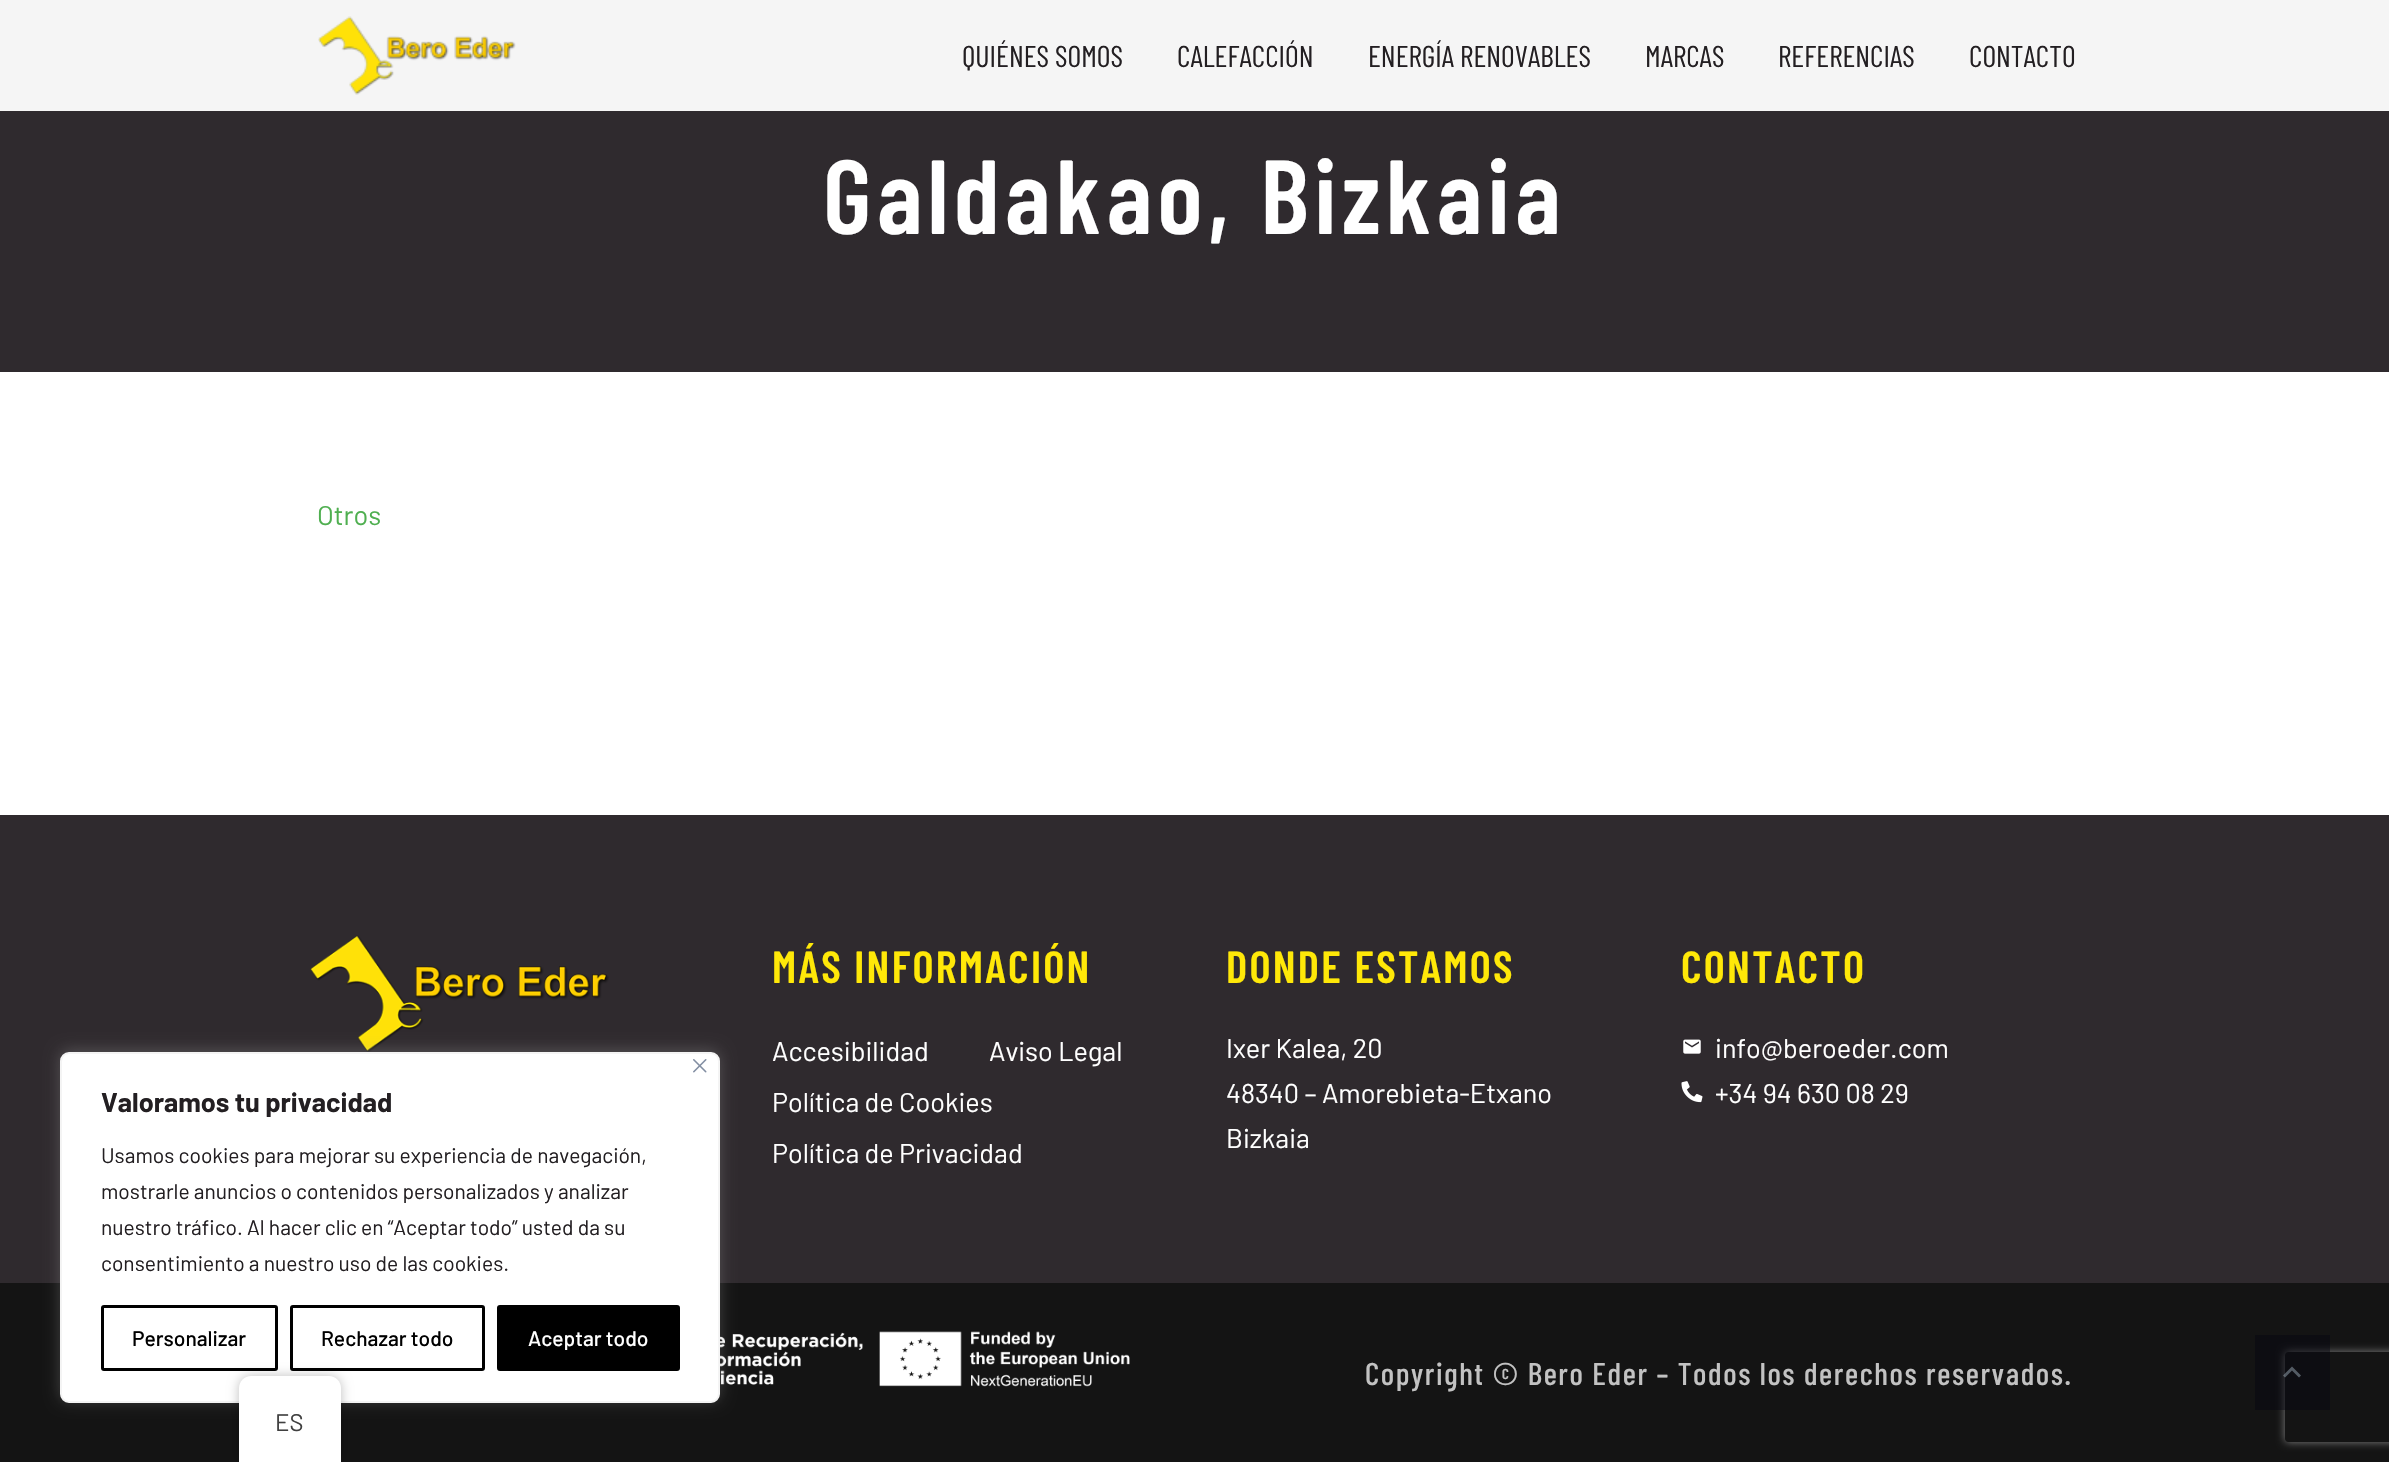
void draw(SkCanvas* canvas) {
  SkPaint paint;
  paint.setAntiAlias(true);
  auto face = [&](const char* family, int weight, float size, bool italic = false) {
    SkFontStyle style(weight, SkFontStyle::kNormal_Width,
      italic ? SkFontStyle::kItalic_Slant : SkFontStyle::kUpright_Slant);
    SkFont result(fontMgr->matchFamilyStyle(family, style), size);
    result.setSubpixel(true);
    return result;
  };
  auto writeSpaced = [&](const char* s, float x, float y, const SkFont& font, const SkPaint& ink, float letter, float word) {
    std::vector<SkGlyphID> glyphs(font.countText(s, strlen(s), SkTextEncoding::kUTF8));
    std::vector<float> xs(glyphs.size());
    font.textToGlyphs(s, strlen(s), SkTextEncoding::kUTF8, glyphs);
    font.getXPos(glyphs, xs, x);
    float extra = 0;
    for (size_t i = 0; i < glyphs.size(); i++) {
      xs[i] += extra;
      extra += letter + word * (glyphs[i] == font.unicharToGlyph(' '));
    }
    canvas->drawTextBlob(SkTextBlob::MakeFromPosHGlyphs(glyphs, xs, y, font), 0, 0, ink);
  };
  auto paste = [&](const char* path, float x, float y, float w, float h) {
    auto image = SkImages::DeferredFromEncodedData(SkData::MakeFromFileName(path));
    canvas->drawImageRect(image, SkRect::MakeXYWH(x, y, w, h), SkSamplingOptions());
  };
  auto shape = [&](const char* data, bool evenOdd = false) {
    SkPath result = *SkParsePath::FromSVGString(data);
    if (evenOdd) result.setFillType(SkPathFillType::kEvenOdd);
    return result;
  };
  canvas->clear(0xffffffff);
  paint.setColor(0xff2f2a2e);
  canvas->drawRect(SkRect::MakeXYWH(0, 0, 2389, 372), paint);
  paint.setColor(0xf2ffffff);
  canvas->drawRect(SkRect::MakeXYWH(0, 0, 2389, 111), paint);
  paste("img/1.png", 318, 16, 198, 79);
  paint.setColor(0xff2f2a2e);
  canvas->drawRect(SkRect::MakeXYWH(0, 815, 2389, 468), paint);
  paste("img/2.png", 310, 935, 299, 117);
  paste("img/3.png", 1683, 1039, 18, 15);
  paste("img/4.png", 1681, 1081, 22, 22);
  paint.setColor(0xff141414);
  canvas->drawRect(SkRect::MakeXYWH(0, 1283, 2389, 179), paint);
  paste("img/5.png", 720, 1331, 410, 56);
  canvas->save();
  canvas->clipPath(shape("M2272 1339H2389V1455H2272ZM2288 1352H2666C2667.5 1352 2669 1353.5 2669 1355V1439C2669 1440.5 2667.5 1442 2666 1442H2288C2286.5 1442 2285 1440.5 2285 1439V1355C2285 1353.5 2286.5 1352 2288 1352Z", true), true);
  paint.setColor(0xff808080);
  paint.setMaskFilter(SkMaskFilter::MakeBlur(kNormal_SkBlurStyle, 4));
  canvas->drawRoundRect(SkRect::MakeXYWH(2285, 1352, 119, 90), 3, 3, paint);
  paint.setMaskFilter(nullptr);
  canvas->restore();
  paint.setColor(0x8006060f);
  canvas->drawRect(SkRect::MakeXYWH(2255, 1335, 75, 75), paint);
  paint.setColor(0x8099a9b5);
  canvas->drawPath(shape("M2285 1377.5L2292 1370.5L2299 1377.5L2301 1375.5L2292 1366.5L2283 1375.5Z"), paint);
  paint.setColor(0x4dacabab);
  paint.setMaskFilter(SkMaskFilter::MakeBlur(kNormal_SkBlurStyle, 7.5f));
  canvas->drawRoundRect(SkRect::MakeXYWH(60, 1050, 660, 351), 9, 9, paint);
  paint.setMaskFilter(nullptr);
  paint.setColor(0xffffffff);
  canvas->drawRoundRect(SkRect::MakeXYWH(61, 1053, 658, 349), 8, 8, paint);
  paint.setStroke(true);
  paint.setStrokeWidth(2);
  paint.setColor(0xfff4f4f4);
  canvas->drawRoundRect(SkRect::MakeXYWH(61, 1053, 658, 349), 8, 8, paint);
  paste("img/6.png", 693, 1059, 14, 14);
  paint.setStrokeWidth(3);
  paint.setColor(0xff000000);
  canvas->drawRoundRect(SkRect::MakeXYWH(102.5f, 1306.5f, 174, 63), 1.5f, 1.5f, paint);
  canvas->drawRoundRect(SkRect::MakeXYWH(291.5f, 1306.5f, 192, 63), 1.5f, 1.5f, paint);
  paint.setStroke(false);
  canvas->drawRoundRect(SkRect::MakeXYWH(498.5f, 1306.5f, 180, 63), 1.5f, 1.5f, paint);
  paint.setStroke(true);
  canvas->drawRoundRect(SkRect::MakeXYWH(498.5f, 1306.5f, 180, 63), 1.5f, 1.5f, paint);
  paint.setStroke(false);
  paint.setColor(0x40000000);
  paint.setMaskFilter(SkMaskFilter::MakeBlur(kNormal_SkBlurStyle, 6));
  canvas->drawRoundRect(SkRect::MakeXYWH(239, 1376, 102, 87), 12, 12, paint);
  paint.setMaskFilter(nullptr);
  paint.setColor(0xffffffff);
  canvas->drawPath(shape("M251 1376H329C335.5 1376 341 1381.5 341 1388V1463H239V1388C239 1381.5 244.5 1376 251 1376Z"), paint);
  auto f0 = face("Barlow Condensed", 400, 30);
  paint.setColor(0xff231f22);
  {
    const struct { const char* s; float x, y; } items[] = {
      {"QUIÉNES SOMOS", 962, 67},
      {"CALEFACCIÓN", 1177, 67},
      {"ENERGÍA RENOVABLES", 1368, 67},
      {"MARCAS", 1645, 67},
      {"REFERENCIAS", 1778, 67},
      {"CONTACTO", 1969, 67},
    };
    for (auto [s, x, y] : items) {
      canvas->drawString(s, x, y, f0, paint);
    }
  }
  auto f1 = face("Barlow Condensed", 600, 105);
  paint.setColor(0xffffffff);
  writeSpaced("Galdakao, Bizkaia", 823, 234, f1, paint, 5.25f, 0);
  auto f2 = face("Barlow", 400, 27);
  paint.setColor(0xff4faf50);
  canvas->drawString("Otros", 317, 525, f2, paint);
  auto f3 = face("Barlow Condensed", 600, 45);
  paint.setColor(0xffffe808);
  writeSpaced("MÁS INFORMACIÓN", 772, 983, f3, paint, 2.25f, 0);
  paint.setColor(0xffffffff);
  {
    const struct { const char* s; float x, y; } items[] = {
      {"Accesibilidad", 772, 1061},
      {"Aviso Legal", 989, 1061},
      {"Política de Cookies", 772, 1112},
      {"Política de Privacidad", 772, 1163},
    };
    for (auto [s, x, y] : items) {
      canvas->drawString(s, x, y, f2, paint);
    }
  }
  paint.setColor(0xffffe808);
  writeSpaced("DONDE ESTAMOS", 1226, 983, f3, paint, 2.25f, 0);
  paint.setColor(0xffffffff);
  {
    const struct { const char* s; float x, y; } items[] = {
      {"Ixer Kalea, 20", 1226, 1058},
      {"48340 – Amorebieta-Etxano", 1226, 1103},
      {"Bizkaia", 1226, 1148},
    };
    for (auto [s, x, y] : items) {
      canvas->drawString(s, x, y, f2, paint);
    }
  }
  paint.setColor(0xffffe808);
  writeSpaced("CONTACTO", 1681, 983, f3, paint, 2.25f, 0);
  paint.setColor(0xffffffff);
  canvas->drawString("info@beroeder.com", 1715, 1058, f2, paint);
  canvas->drawString("+34 94 630 08 29", 1715, 1103, f2, paint);
  auto f4 = face("Barlow Condensed", 500, 31.5f);
  paint.setColor(0xffc2c2c2);
  writeSpaced("Copyright © Bero Eder – Todos los derechos reservados.", 1365, 1385, f4, paint, 1.58f, 0);
  auto f5 = face("Barlow", 700, 27);
  paint.setColor(0xff231f22);
  canvas->drawString("Valoramos tu privacidad", 101, 1112, f5, paint);
  auto f6 = face("Barlow", 400, 21);
  {
    const struct { const char* s; float x, y; } items[] = {
      {"Usamos cookies para mejorar su experiencia de navegación,", 101, 1163},
      {"mostrarle anuncios o contenidos personalizados y analizar", 101, 1199},
      {"nuestro tráfico. Al hacer clic en “Aceptar todo” usted da su", 101, 1235},
      {"consentimiento a nuestro uso de las cookies.", 101, 1271},
    };
    for (auto [s, x, y] : items) {
      canvas->drawString(s, x, y, f6, paint);
    }
  }
  auto f7 = face("Barlow", 500, 21);
  paint.setColor(0xff000000);
  canvas->drawString("Personalizar", 132, 1346, f7, paint);
  canvas->drawString("Rechazar todo", 321, 1346, f7, paint);
  paint.setColor(0xffffffff);
  canvas->drawString("Aceptar todo", 528, 1346, f7, paint);
  auto f8 = face("Barlow", 400, 24);
  paint.setColor(0xff404040);
  canvas->drawString("ES", 275, 1431, f8, paint);
}
